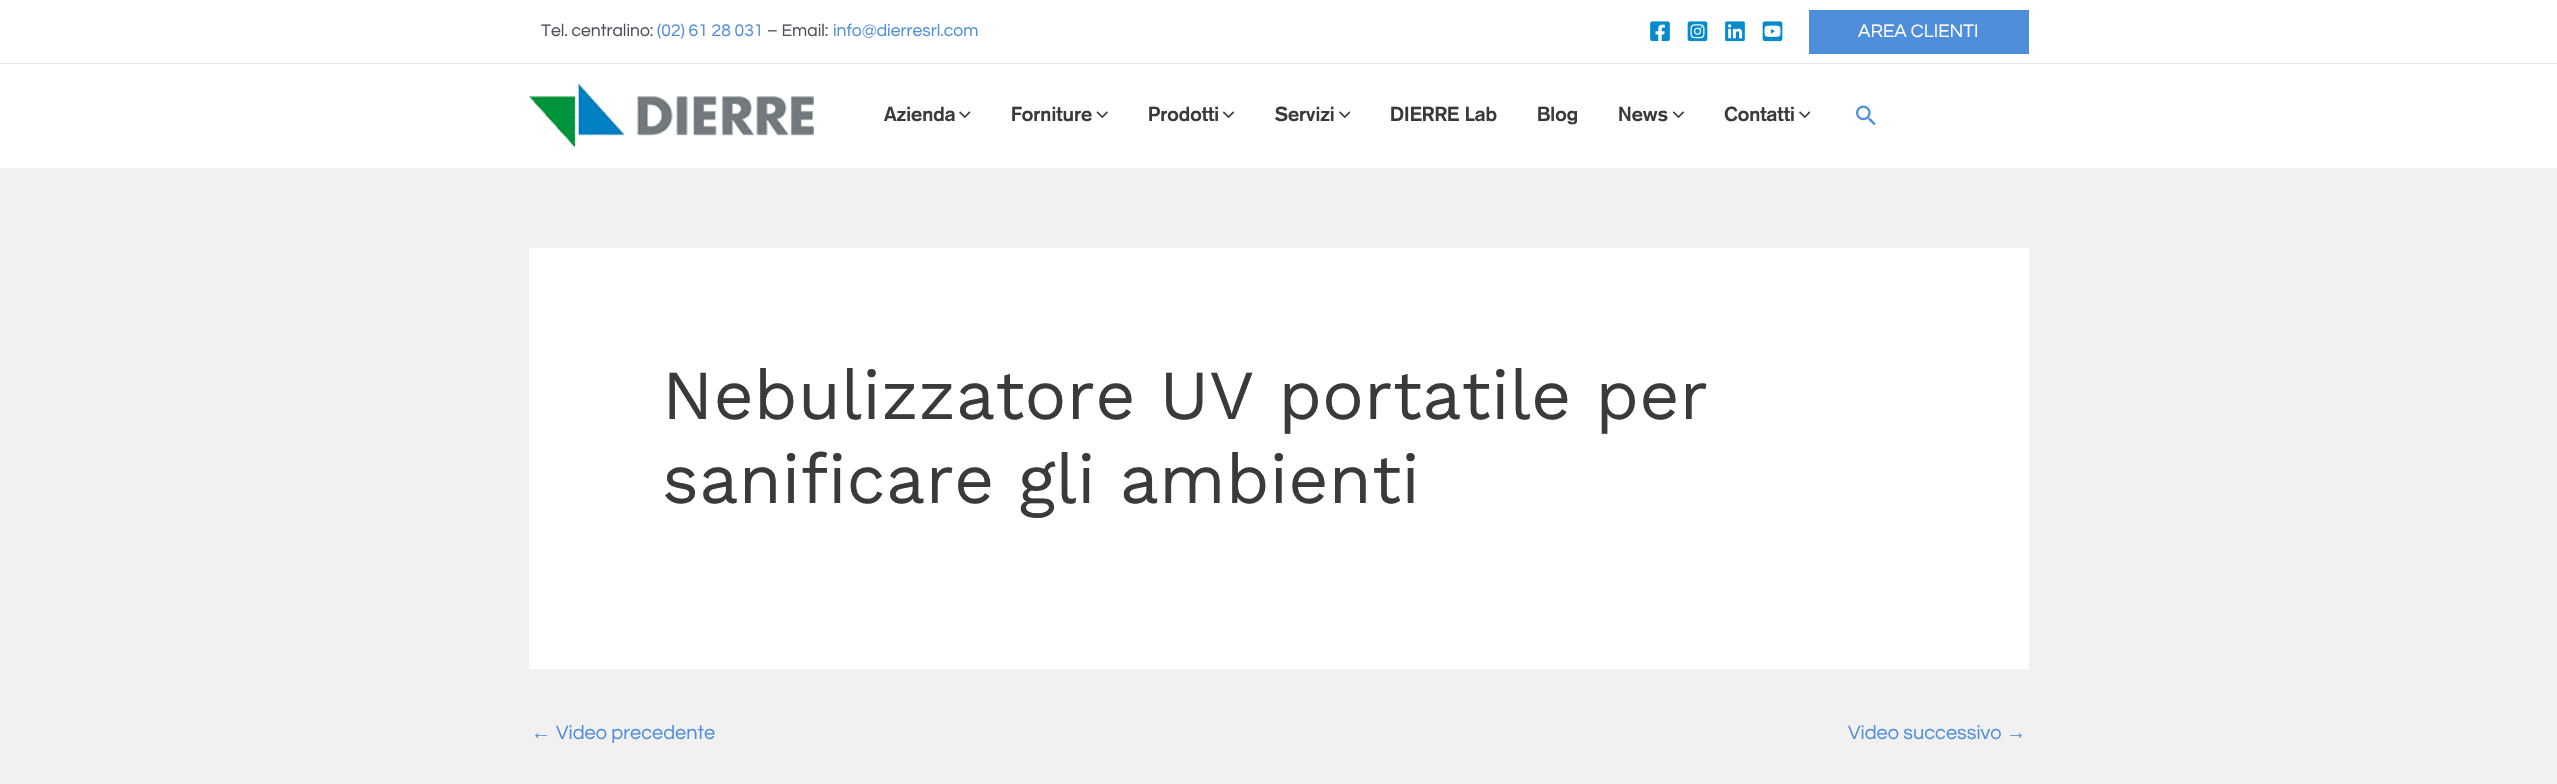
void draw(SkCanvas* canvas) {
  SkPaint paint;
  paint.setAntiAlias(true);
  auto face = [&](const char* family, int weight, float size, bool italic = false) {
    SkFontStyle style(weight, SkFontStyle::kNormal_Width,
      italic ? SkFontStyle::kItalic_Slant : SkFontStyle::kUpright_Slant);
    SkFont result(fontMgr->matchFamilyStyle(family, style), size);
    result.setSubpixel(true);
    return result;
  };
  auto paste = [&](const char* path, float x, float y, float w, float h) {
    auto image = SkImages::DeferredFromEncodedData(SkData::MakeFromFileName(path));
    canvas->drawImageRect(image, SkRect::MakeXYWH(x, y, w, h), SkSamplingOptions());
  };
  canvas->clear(0xfff1f1f1);
  paint.setColor(0xffffffff);
  canvas->drawRect(SkRect::MakeXYWH(0, 0, 2557, 63), paint);
  paint.setColor(0xffeaeaea);
  canvas->drawRect(SkRect::MakeXYWH(0, 63, 2557, 1), paint);
  paste("img/1.png", 1650, 21, 20, 21);
  paste("img/2.png", 1687, 21, 21, 21);
  paste("img/3.png", 1725, 21, 20, 21);
  paste("img/4.png", 1762, 21, 21, 21);
  paint.setColor(0xff4f8edb);
  canvas->drawRect(SkRect::MakeXYWH(1809, 10, 220, 44), paint);
  paint.setColor(0xffffffff);
  canvas->drawRect(SkRect::MakeXYWH(0, 64, 2557, 104), paint);
  paste("img/5.png", 528, 83, 286, 65);
  paste("img/6.png", 959, 111, 12, 8);
  paste("img/7.png", 1096, 111, 12, 8);
  paste("img/8.png", 1223, 111, 12, 8);
  paste("img/9.png", 1339, 111, 11, 8);
  paste("img/10.png", 1673, 111, 11, 8);
  paste("img/9.png", 1799, 111, 11, 8);
  paste("img/11.png", 1856, 105, 20, 21);
  canvas->drawRect(SkRect::MakeXYWH(529, 248, 1500, 421), paint);
  auto f0 = face("Questrial", 400, 17.5f);
  paint.setColor(0xff4b4f58);
  canvas->drawString("Tel. centralino:", 541, 36, f0, paint);
  paint.setColor(0xff4f8edb);
  canvas->drawString("(02) 61 28 031", 657, 36, f0, paint);
  paint.setColor(0xff4b4f58);
  canvas->drawString("– Email:", 767, 36, f0, paint);
  paint.setColor(0xff4f8edb);
  canvas->drawString("info@dierresrl.com", 833, 36, f0, paint);
  auto f1 = face("Questrial", 400, 18.75f);
  paint.setColor(0xffffffff);
  canvas->drawString("AREA CLIENTI", 1858, 37, f1, paint);
  auto f2 = face("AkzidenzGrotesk", 700, 20);
  paint.setColor(0xff3a3a3a);
  {
    const struct { const char* s; float x, y; } items[] = {
      {"Azienda", 884, 121},
      {"Forniture", 1011, 121},
      {"Prodotti", 1148, 121},
      {"Servizi", 1275, 121},
      {"DIERRE Lab", 1390, 121},
      {"Blog", 1537, 121},
      {"News", 1618, 121},
      {"Contatti", 1724, 121},
    };
    for (auto [s, x, y] : items) {
      canvas->drawString(s, x, y, f2, paint);
    }
  }
  auto f3 = face("Work Sans", 400, 70);
  canvas->drawString("Nebulizzatore UV portatile per", 662, 419, f3, paint);
  canvas->drawString("sanificare gli ambienti", 662, 503, f3, paint);
  auto f4 = face("Liberation Sans", 400, 20);
  paint.setColor(0xff4f8edb);
  canvas->drawString("←", 531, 739, f4, paint);
  auto f5 = face("Questrial", 400, 20);
  canvas->drawString("Video precedente", 556, 739, f5, paint);
  canvas->drawString("Video successivo", 1848, 739, f5, paint);
  canvas->drawString("→", 2006, 739, f4, paint);
}
